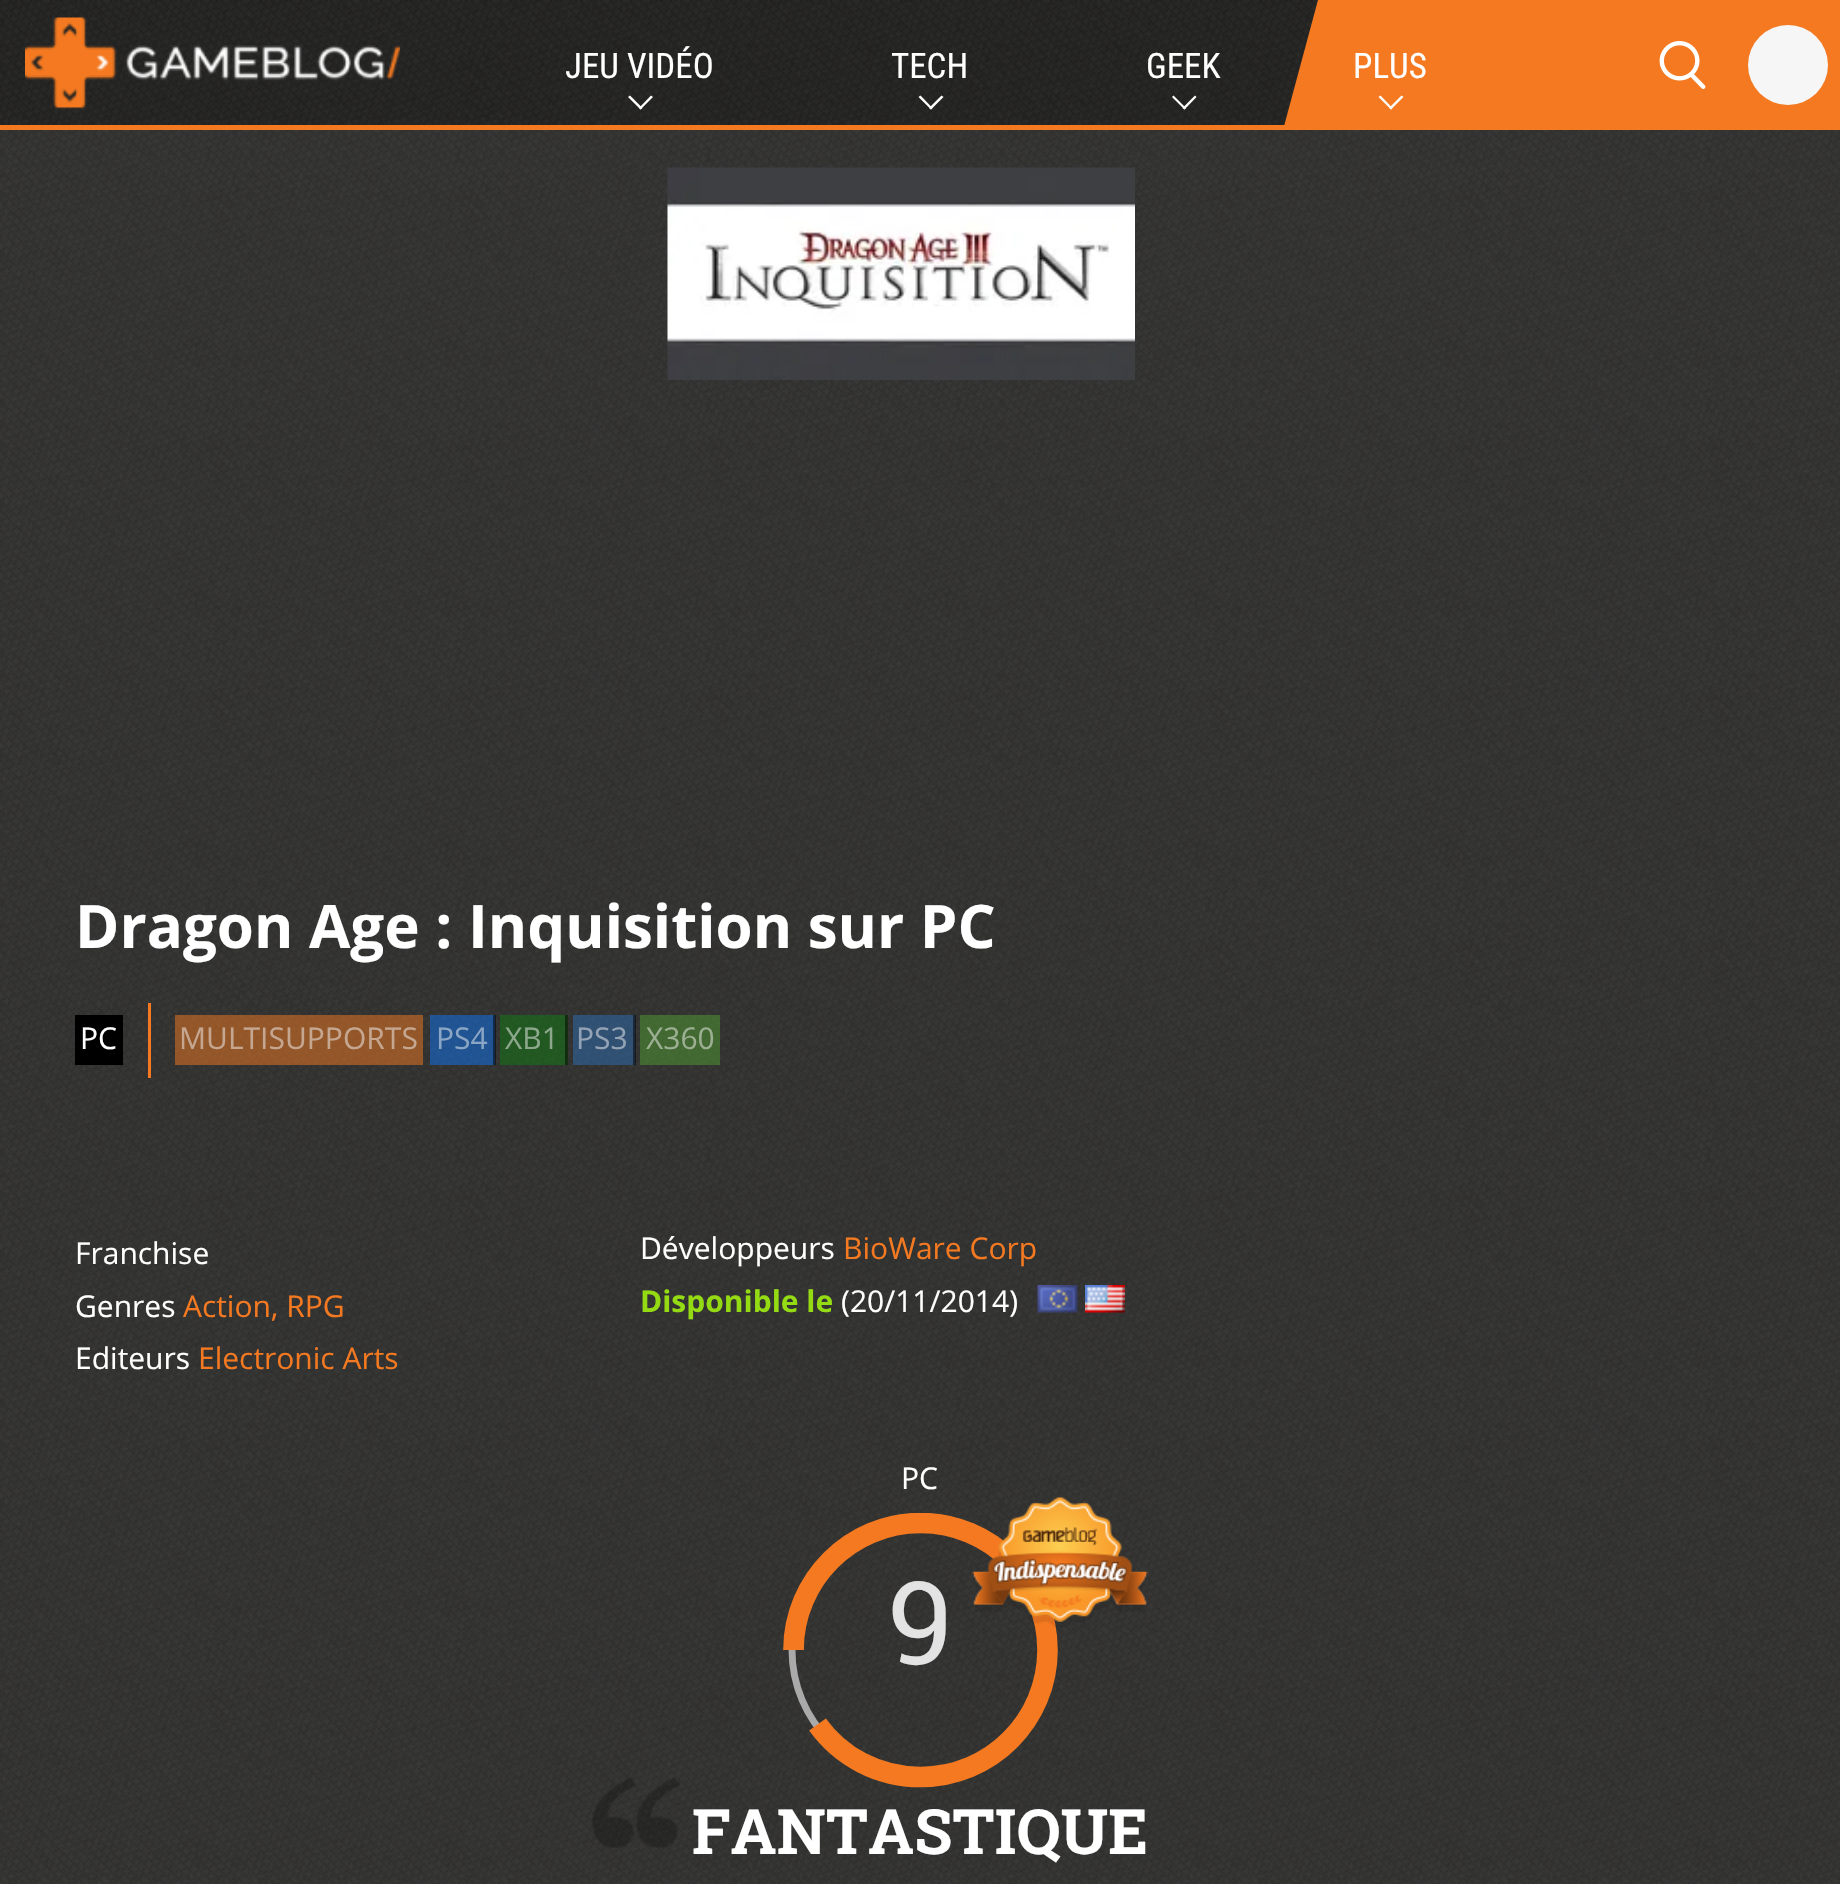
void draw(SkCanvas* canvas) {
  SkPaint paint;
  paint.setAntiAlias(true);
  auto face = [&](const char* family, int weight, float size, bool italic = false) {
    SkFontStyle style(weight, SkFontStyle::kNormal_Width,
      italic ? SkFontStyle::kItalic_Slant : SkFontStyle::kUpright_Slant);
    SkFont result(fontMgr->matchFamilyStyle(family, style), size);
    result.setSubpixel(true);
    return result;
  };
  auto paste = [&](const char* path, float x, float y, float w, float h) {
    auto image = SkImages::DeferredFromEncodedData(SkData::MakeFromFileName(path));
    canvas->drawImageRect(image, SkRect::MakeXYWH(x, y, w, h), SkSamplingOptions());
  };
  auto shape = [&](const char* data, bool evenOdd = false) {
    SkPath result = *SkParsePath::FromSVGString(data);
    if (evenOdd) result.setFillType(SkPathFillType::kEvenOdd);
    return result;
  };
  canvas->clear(0xffffffff);
  paste("img/1.png", 0, 0, 1318, 125);
  paint.setColor(0xfff47920);
  canvas->drawRect(SkRect::MakeXYWH(0, 125, 1285, 5), paint);
  paste("img/2.png", 25, 17, 375, 93);
  paint.setColor(0xffffffff);
  canvas->drawPath(shape("M651 95.5L653 97L640.5 109.5L639 108Z"), paint);
  canvas->drawPath(shape("M630 95.5L642.5 108L640.5 109.5L628 97Z"), paint);
  canvas->drawPath(shape("M941.5 95.5L943.5 97L931 109.5L929 108Z"), paint);
  canvas->drawPath(shape("M920.5 95.5L932.5 108L931 109.5L918.5 97Z"), paint);
  canvas->drawPath(shape("M1195 95.5L1196.5 97L1184.5 109.5L1182.5 108Z"), paint);
  canvas->drawPath(shape("M1173.5 95.5L1186 108L1184.5 109.5L1172 97Z"), paint);
  paint.setColor(0xfff47920);
  canvas->drawPath(shape("M1318 0L1283 130H1840V0Z"), paint);
  paint.setColor(0xffffffff);
  canvas->drawPath(shape("M1401.5 95.5L1403.5 97L1391 109.5L1389 108Z"), paint);
  canvas->drawPath(shape("M1380.5 95.5L1392.5 108L1391 109.5L1378.5 97Z"), paint);
  paste("img/3.png", 1659, 41, 47, 48);
  paint.setColor(0xfff6f6f6);
  canvas->drawCircle(1788, 65, 40, paint);
  paste("img/4.png", 0, 130, 1840, 1754);
  paste("img/5.png", 667, 167, 468, 213);
  {
    const struct { float x, y, w, h; SkColor color; } items[] = {
      {75, 1015, 48, 50, 0xff000000},
      {148, 1003, 3, 75, 0xfff47920},
      {175, 1015, 248, 50, 0x80f47920},
      {430, 1015, 65, 50, 0x800e74f1},
      {493, 1015, 3, 50, 0x80000000},
      {500, 1015, 68, 50, 0x80107c10},
      {565, 1015, 3, 50, 0x80000000},
      {573, 1015, 62, 50, 0x802e6db4},
      {633, 1015, 3, 50, 0x80000000},
      {640, 1015, 80, 50, 0x80509e2f},
    };
    for (auto [x, y, w, h, color] : items) {
      paint.setColor(color);
      canvas->drawRect(SkRect::MakeXYWH(x, y, w, h), paint);
    }
  }
  paste("img/6.png", 1037, 1285, 41, 28);
  paste("img/7.png", 1085, 1285, 40, 28);
  paint.setStroke(true);
  paint.setStrokeWidth(6.9f);
  paint.setColor(0xffaaaaaa);
  canvas->drawPath(shape("M792 1650C792 1579 849.5 1521.5 920.5 1521.5C991.5 1521.5 1049 1579 1049 1650C1049 1721 991.5 1778.5 920.5 1778.5C849.5 1778.5 792 1721 792 1650Z"), paint);
  canvas->save();
  canvas->clipRect(SkRect::MakeXYWH(693, 1513, 455, 275));
  paint.setStrokeWidth(20.6f);
  paint.setColor(0xfff47920);
  canvas->drawPath(shape("M793.5 1650C793.5 1580 850.5 1523 920.5 1523C991 1523 1047.5 1580 1047.5 1650C1047.5 1720 991 1777 920.5 1777C878 1777 840.5 1756.5 817.5 1724.5"), paint);
  canvas->restore();
  paste("img/8.png", 972, 1497, 176, 131);
  paste("img/9.png", 592, 1777, 88, 71);
  auto f0 = face("Roboto Condensed", 400, 35);
  paint.setStroke(false);
  paint.setColor(0xffffffff);
  {
    const struct { const char* s; float x, y; } items[] = {
      {"JEU VIDÉO", 565, 78},
      {"TECH", 891, 78},
      {"GEEK", 1146, 78},
      {"PLUS", 1353, 78},
    };
    for (auto [s, x, y] : items) {
      canvas->drawString(s, x, y, f0, paint);
    }
  }
  auto f1 = face("Open Sans", 700, 60);
  canvas->drawString("Dragon Age : Inquisition sur PC", 75, 948, f1, paint);
  auto f2 = face("Open Sans", 400, 30);
  canvas->drawString("PC", 80, 1049, f2, paint);
  paint.setColor(0xffc5a690);
  canvas->drawString("MULTISUPPORTS", 179, 1049, f2, paint);
  paint.setColor(0xff8ba5c4);
  canvas->drawString("PS4", 436, 1049, f2, paint);
  paint.setColor(0xff8ca78c);
  canvas->drawString("XB1", 505, 1049, f2, paint);
  paint.setColor(0xff93a3b5);
  canvas->drawString("PS3", 576, 1049, f2, paint);
  paint.setColor(0xff9caf93);
  canvas->drawString("X360", 646, 1049, f2, paint);
  paint.setColor(0xffffffff);
  canvas->drawString("Franchise", 75, 1264, f2, paint);
  canvas->drawString("Genres", 75, 1317, f2, paint);
  paint.setColor(0xfff47920);
  canvas->drawString("Action, RPG", 183, 1317, f2, paint);
  paint.setColor(0xffffffff);
  canvas->drawString("Editeurs", 75, 1369, f2, paint);
  paint.setColor(0xfff47920);
  canvas->drawString("Electronic Arts", 198, 1369, f2, paint);
  paint.setColor(0xffffffff);
  canvas->drawString("Développeurs", 640, 1259, f2, paint);
  paint.setColor(0xfff47920);
  canvas->drawString("BioWare Corp", 843, 1259, f2, paint);
  auto f3 = face("Open Sans", 700, 30);
  paint.setColor(0xff94db13);
  canvas->drawString("Disponible le", 640, 1312, f3, paint);
  paint.setColor(0xffffffff);
  canvas->drawString("(20/11/2014)", 841, 1312, f2, paint);
  canvas->drawString("PC", 901, 1489, f2, paint);
  auto f4 = face("Roboto Slab", 400, 115);
  paint.setColor(0xffe3e3e3);
  canvas->drawString("9", 888, 1664, f4, paint);
  auto f5 = face("Roboto Slab", 700, 62.5f);
  paint.setColor(0xffffffff);
  canvas->drawString("FANTASTIQUE", 692, 1854, f5, paint);
}
